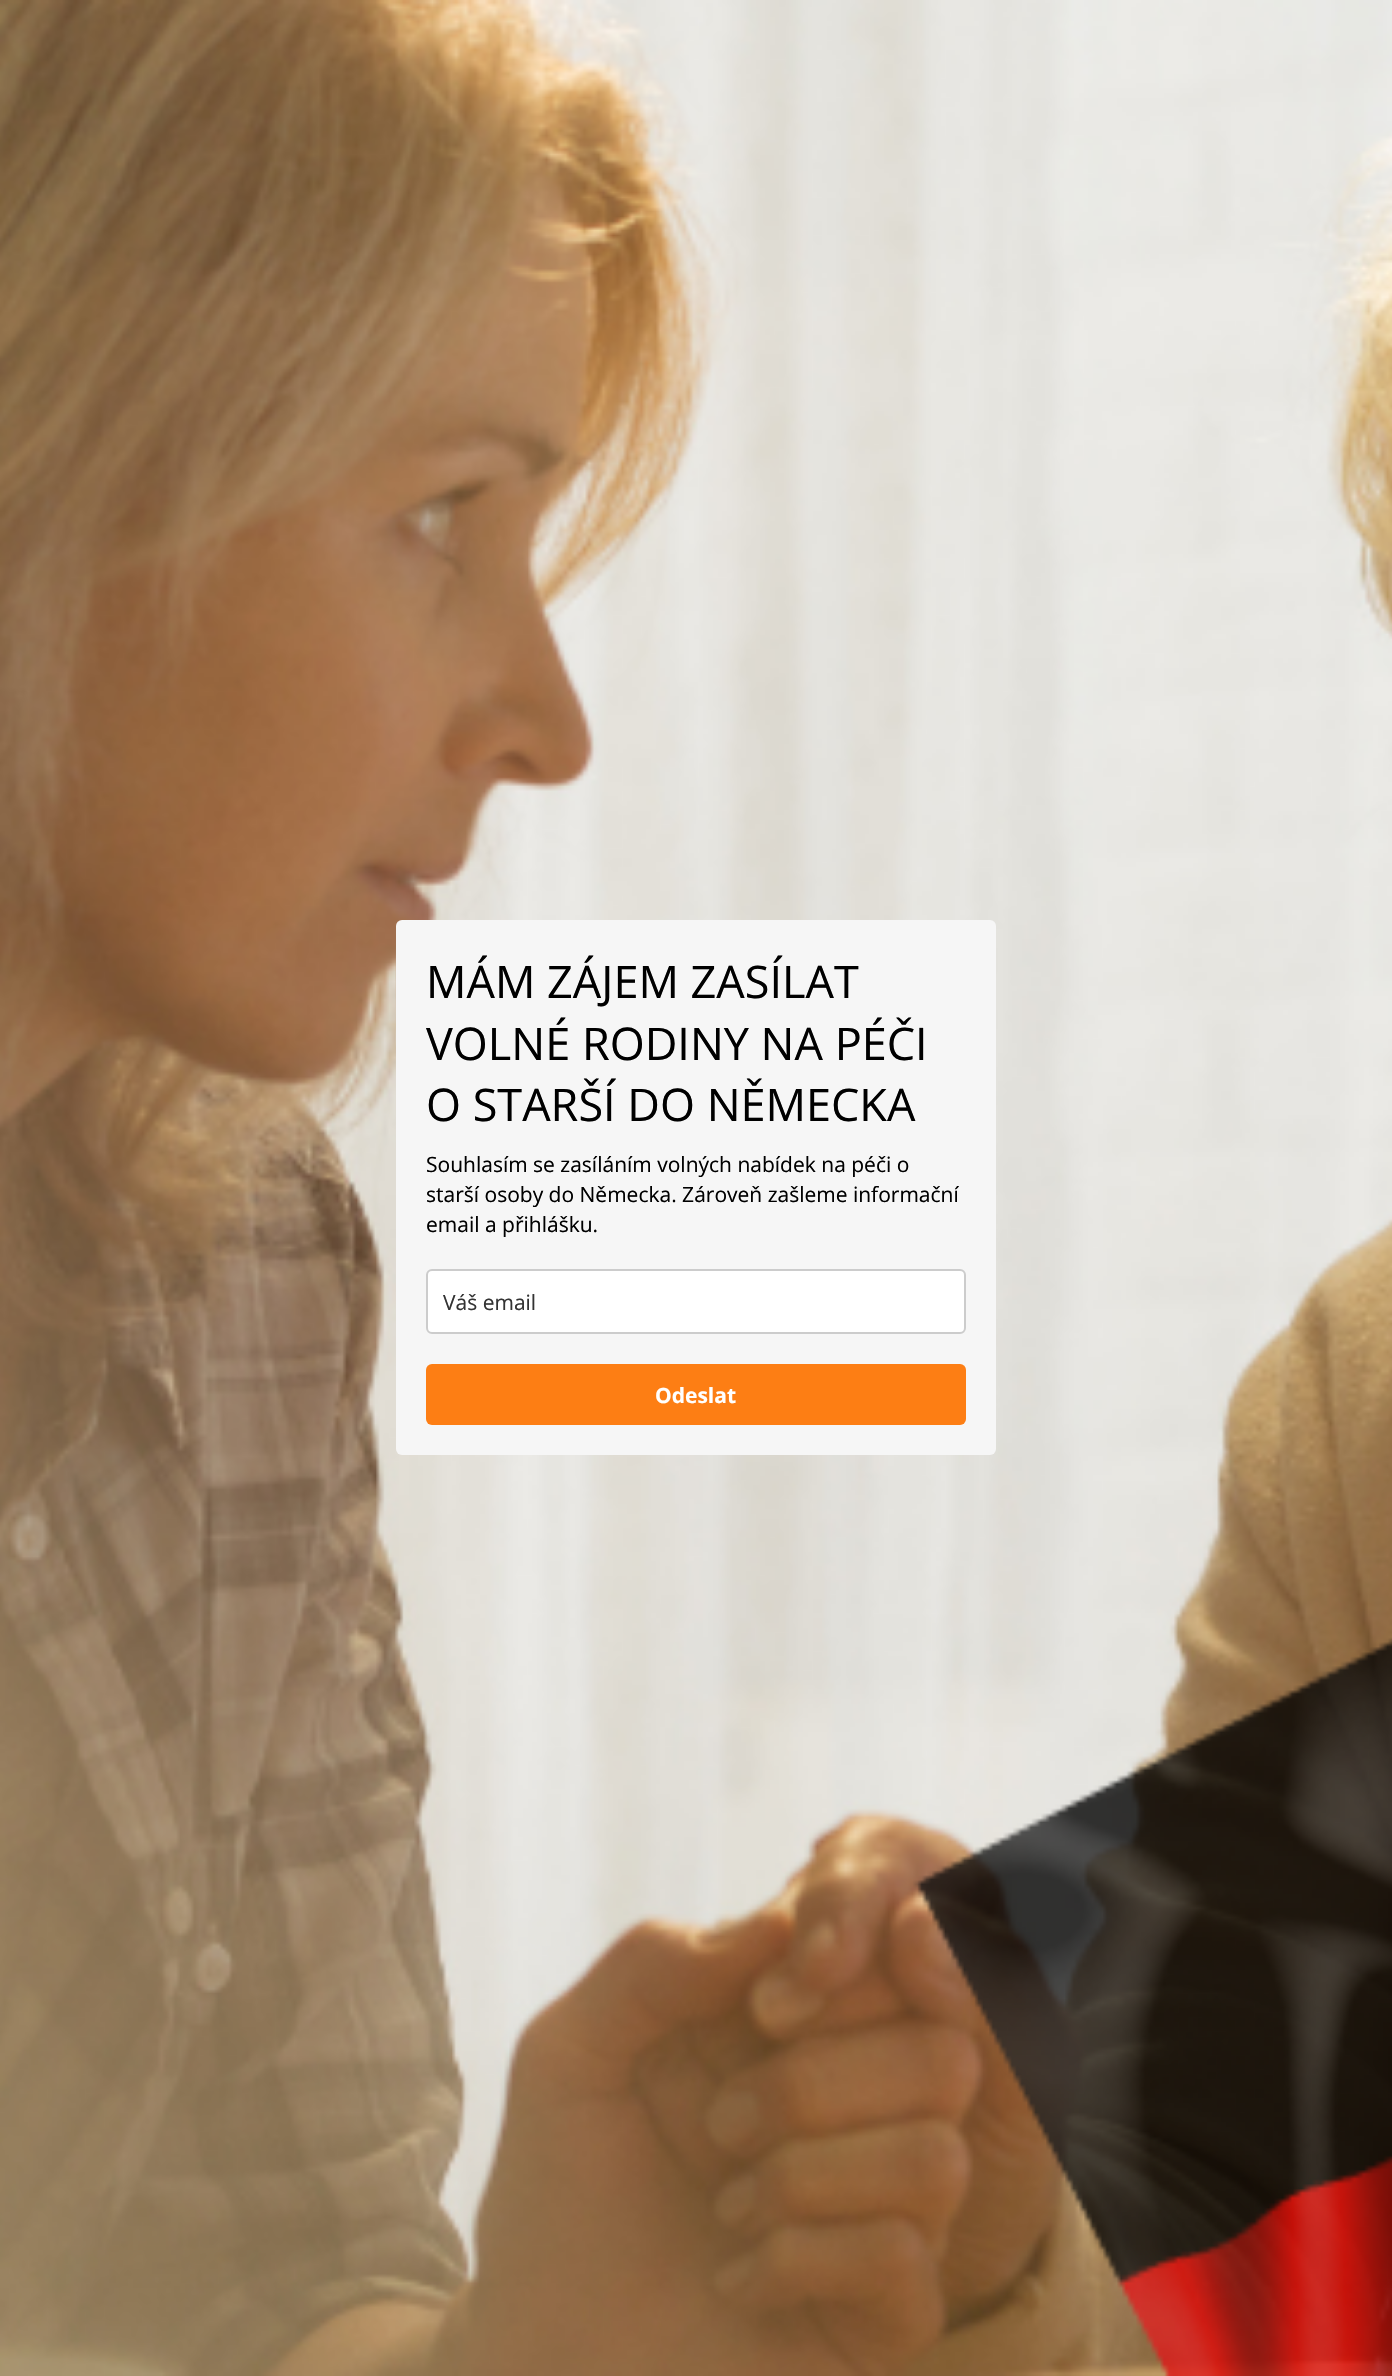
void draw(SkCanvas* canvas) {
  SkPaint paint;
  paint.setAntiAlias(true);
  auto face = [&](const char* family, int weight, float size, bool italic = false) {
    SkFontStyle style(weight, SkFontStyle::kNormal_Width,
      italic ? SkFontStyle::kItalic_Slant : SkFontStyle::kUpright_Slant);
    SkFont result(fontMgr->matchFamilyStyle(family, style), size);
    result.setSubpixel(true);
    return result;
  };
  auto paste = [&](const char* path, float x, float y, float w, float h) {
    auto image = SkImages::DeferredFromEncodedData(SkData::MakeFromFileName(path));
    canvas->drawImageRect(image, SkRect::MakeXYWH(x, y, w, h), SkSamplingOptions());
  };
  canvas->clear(0xffffffff);
  paste("img/1.png", 0, 0, 1392, 2376);
  paint.setColor(0xfff6f6f6);
  canvas->drawRoundRect(SkRect::MakeXYWH(396, 920, 600, 535), 6, 6, paint);
  paint.setColor(0xffffffff);
  canvas->drawRoundRect(SkRect::MakeXYWH(427, 1270, 538, 63), 5, 5, paint);
  paint.setStroke(true);
  paint.setStrokeWidth(2);
  paint.setColor(0xffcccccc);
  canvas->drawRoundRect(SkRect::MakeXYWH(427, 1270, 538, 63), 5, 5, paint);
  paint.setStroke(false);
  paint.setColor(0xfffd7e14);
  canvas->drawRoundRect(SkRect::MakeXYWH(426, 1364, 540, 61), 6, 6, paint);
  auto f0 = face("Open Sans", 400, 45);
  paint.setColor(0xff000000);
  {
    const struct { const char* s; float x, y; } items[] = {
      {"MÁM ZÁJEM ZASÍLAT", 426, 998},
      {"VOLNÉ RODINY NA PÉČI", 426, 1060},
      {"O STARŠÍ DO NĚMECKA", 426, 1121},
    };
    for (auto [s, x, y] : items) {
      canvas->drawString(s, x, y, f0, paint);
    }
  }
  auto f1 = face("Open Sans", 400, 21);
  {
    const struct { const char* s; float x, y; } items[] = {
      {"Souhlasím se zasíláním volných nabídek na péči o", 426, 1172},
      {"starší osoby do Německa. Zároveň zašleme informační", 426, 1202},
      {"email a přihlášku.", 426, 1232},
    };
    for (auto [s, x, y] : items) {
      canvas->drawString(s, x, y, f1, paint);
    }
  }
  paint.setColor(0xff333333);
  canvas->drawString("Váš email", 443, 1310, f1, paint);
  auto f2 = face("Open Sans", 700, 21);
  paint.setColor(0xffffffff);
  canvas->drawString("Odeslat", 655, 1403, f2, paint);
}
